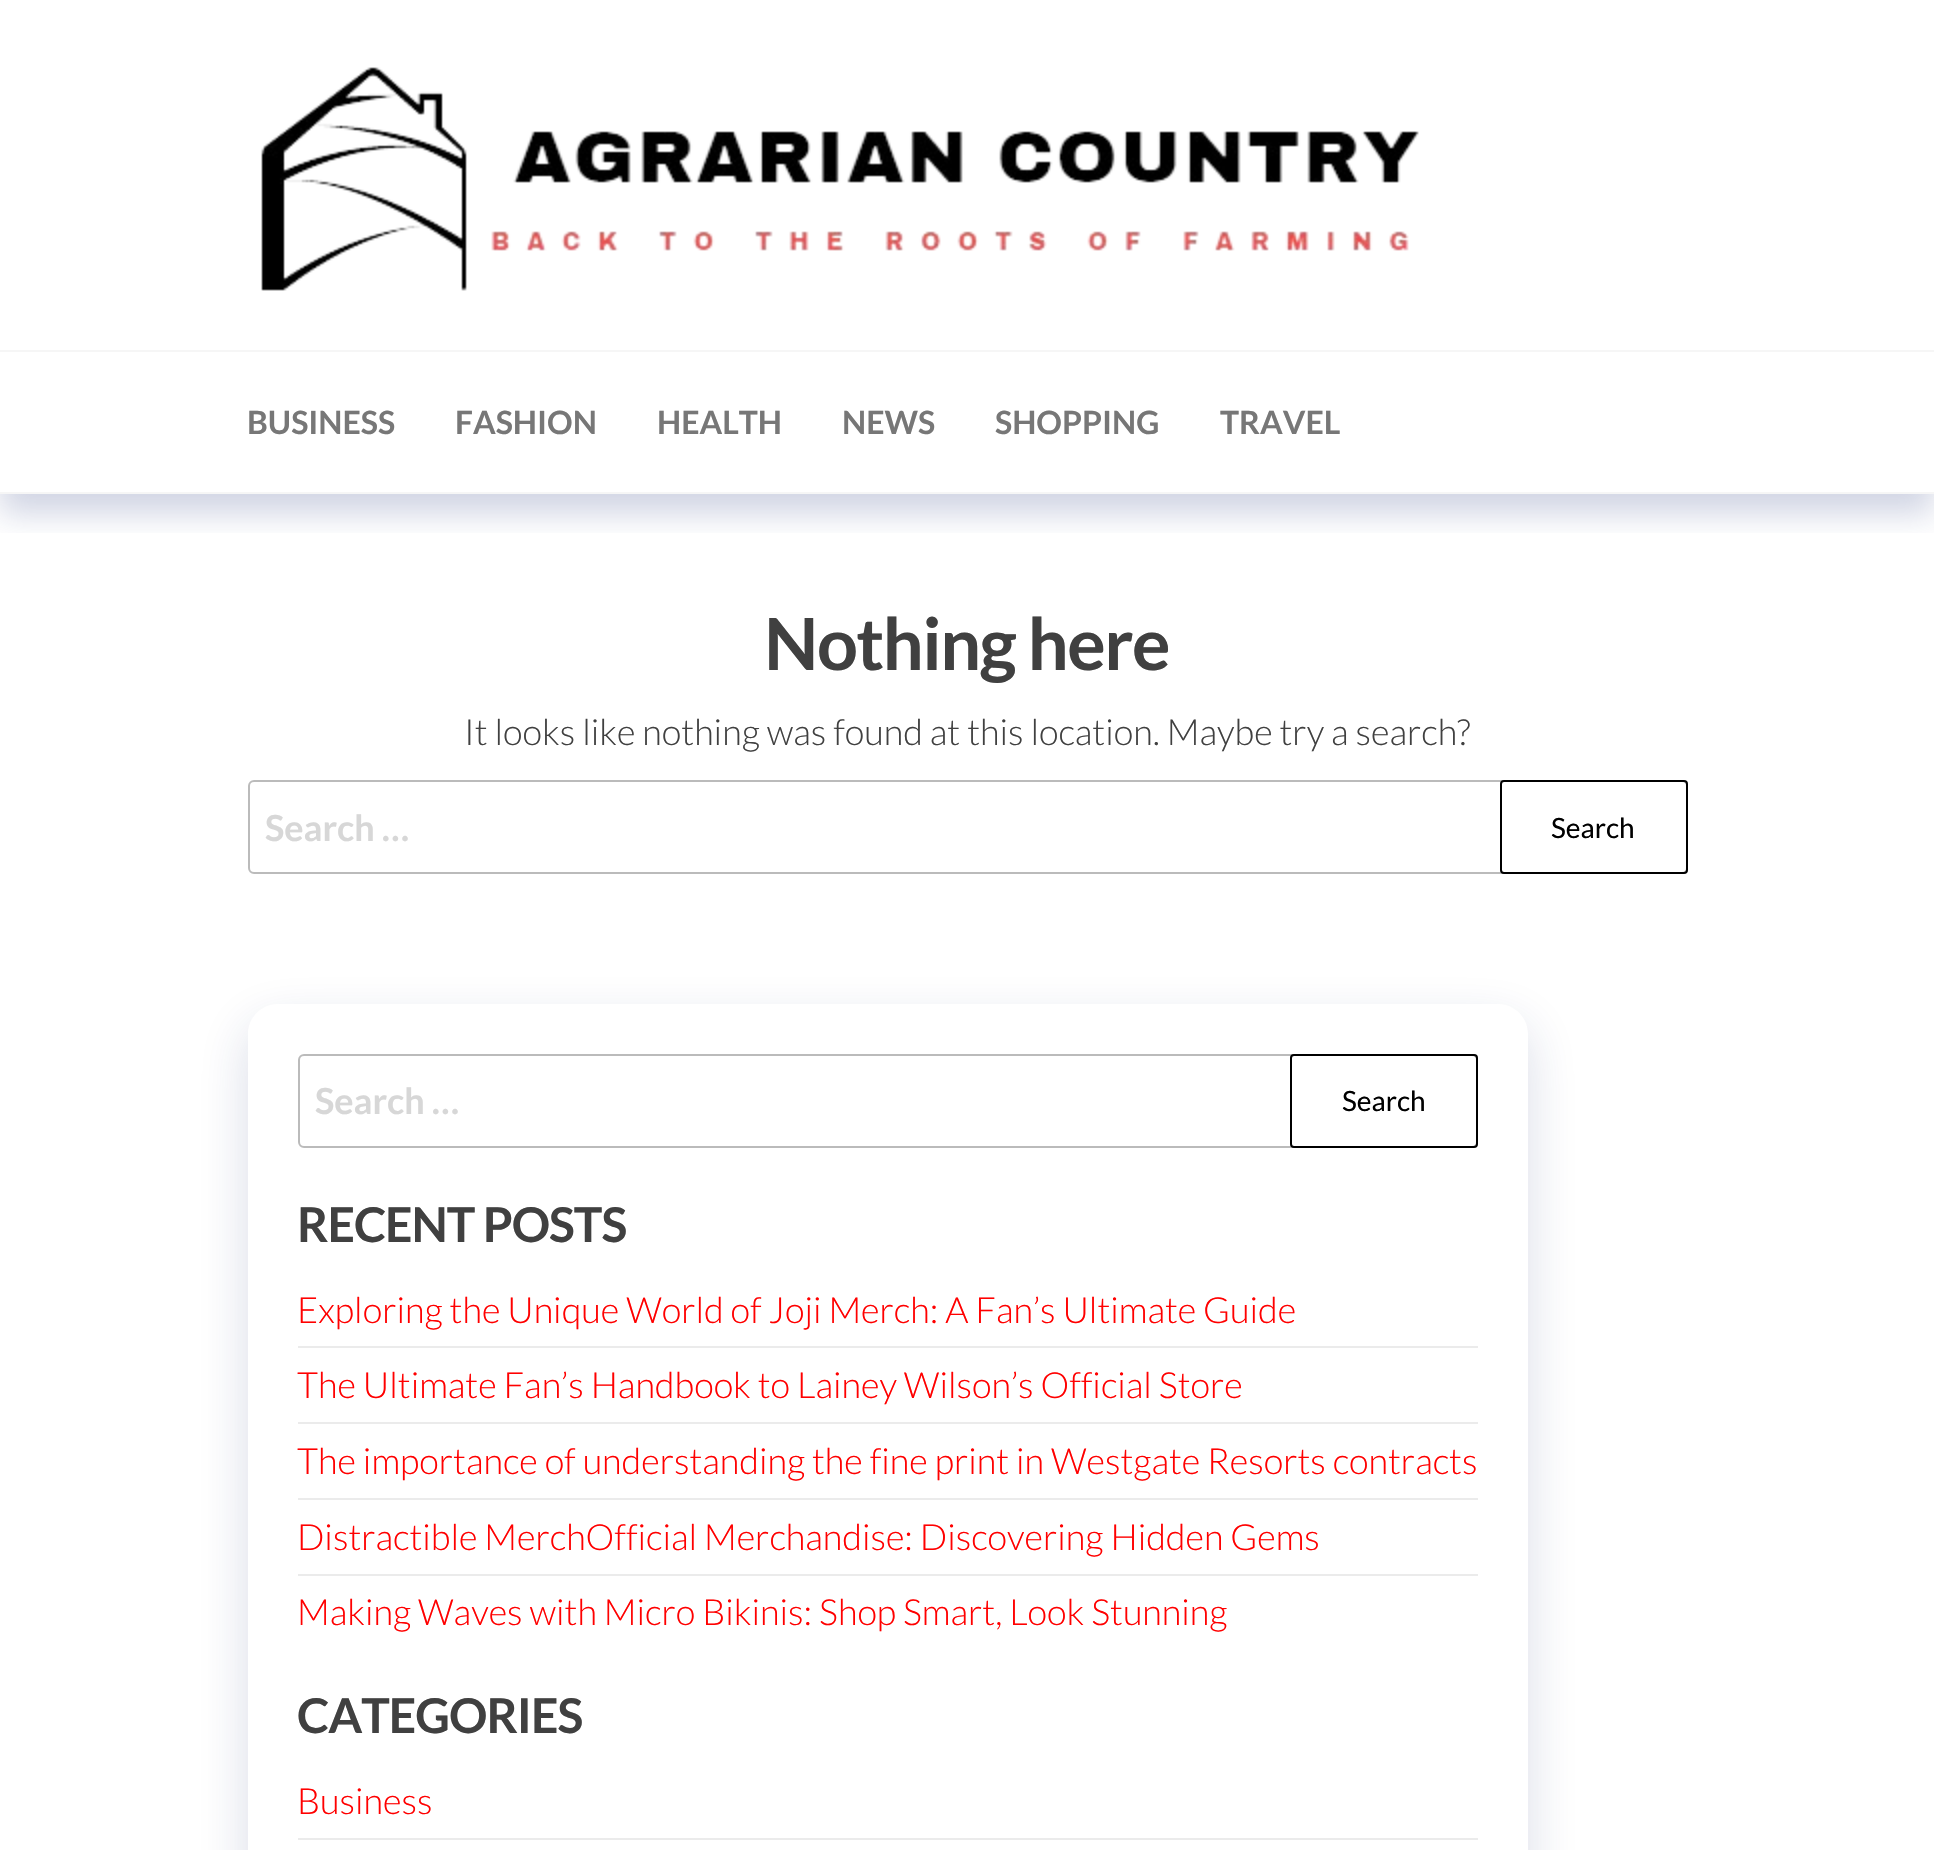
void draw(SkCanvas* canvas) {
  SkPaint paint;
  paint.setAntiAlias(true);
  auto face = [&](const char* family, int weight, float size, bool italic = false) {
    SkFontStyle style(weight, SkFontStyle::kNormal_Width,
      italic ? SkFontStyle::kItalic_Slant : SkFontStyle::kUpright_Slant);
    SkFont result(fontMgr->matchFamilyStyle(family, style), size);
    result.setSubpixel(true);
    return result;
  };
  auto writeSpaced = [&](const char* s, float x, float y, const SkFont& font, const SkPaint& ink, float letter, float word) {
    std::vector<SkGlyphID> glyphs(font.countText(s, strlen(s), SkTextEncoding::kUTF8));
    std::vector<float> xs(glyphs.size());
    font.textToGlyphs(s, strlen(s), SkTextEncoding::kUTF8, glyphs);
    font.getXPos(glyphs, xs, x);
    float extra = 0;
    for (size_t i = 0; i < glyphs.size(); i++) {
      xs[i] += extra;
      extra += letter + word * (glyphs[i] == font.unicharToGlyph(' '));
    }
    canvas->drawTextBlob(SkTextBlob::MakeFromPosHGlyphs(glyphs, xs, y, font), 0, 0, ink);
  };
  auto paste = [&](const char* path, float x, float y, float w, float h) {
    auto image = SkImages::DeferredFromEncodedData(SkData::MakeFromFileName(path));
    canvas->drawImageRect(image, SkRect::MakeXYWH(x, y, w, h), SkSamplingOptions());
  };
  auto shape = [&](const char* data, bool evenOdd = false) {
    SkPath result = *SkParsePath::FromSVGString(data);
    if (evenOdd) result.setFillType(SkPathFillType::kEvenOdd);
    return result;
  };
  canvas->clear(0xffffffff);
  paint.setColor(0xfff6f6f6);
  canvas->drawRect(SkRect::MakeXYWH(0, 350, 1934, 2), paint);
  paste("img/1.png", 261, 67, 1158, 224);
  canvas->save();
  canvas->clipRect(SkRect::MakeXYWH(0, 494, 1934, 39));
  paint.setColor(0x33192d78);
  paint.setMaskFilter(SkMaskFilter::MakeBlur(kNormal_SkBlurStyle, 15));
  canvas->drawRect(SkRect::MakeXYWH(0, 372, 1934, 142), paint);
  paint.setMaskFilter(nullptr);
  canvas->restore();
  paint.setColor(0xfff6f6f6);
  canvas->drawRect(SkRect::MakeXYWH(0, 492, 1934, 2), paint);
  paint.setStroke(true);
  paint.setStrokeWidth(2);
  paint.setColor(0xffbbbbbb);
  canvas->drawRoundRect(SkRect::MakeXYWH(249, 781, 1438, 92), 5, 5, paint);
  paint.setColor(0xff000000);
  canvas->drawRoundRect(SkRect::MakeXYWH(1501, 781, 186, 92), 3, 3, paint);
  canvas->save();
  canvas->clipPath(shape("M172 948H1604V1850H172ZM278 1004H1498C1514.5 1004 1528 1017.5 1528 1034V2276C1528 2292.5 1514.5 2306 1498 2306H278C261.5 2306 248 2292.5 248 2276V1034C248 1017.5 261.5 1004 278 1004Z", true), true);
  paint.setStroke(false);
  paint.setColor(0x2b1c2d71);
  paint.setMaskFilter(SkMaskFilter::MakeBlur(kNormal_SkBlurStyle, 25));
  canvas->drawRoundRect(SkRect::MakeXYWH(248, 1024, 1280, 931), 30, 30, paint);
  paint.setMaskFilter(nullptr);
  canvas->restore();
  paint.setStroke(true);
  paint.setColor(0xffbbbbbb);
  canvas->drawRoundRect(SkRect::MakeXYWH(299, 1055, 1178, 92), 5, 5, paint);
  paint.setColor(0xff000000);
  canvas->drawRoundRect(SkRect::MakeXYWH(1291, 1055, 186, 92), 3, 3, paint);
  paint.setStroke(false);
  {
    const struct { float x, y, w, h; SkColor color; } items[] = {
      {298, 1346, 1180, 2, 0xffebebeb},
      {298, 1422, 1180, 2, 0xffebebeb},
      {298, 1498, 1180, 2, 0xffebebeb},
      {298, 1574, 1180, 2, 0xffebebeb},
      {298, 1838, 1180, 2, 0xffebebeb},
    };
    for (auto [x, y, w, h, color] : items) {
      paint.setColor(color);
      canvas->drawRect(SkRect::MakeXYWH(x, y, w, h), paint);
    }
  }
  auto f0 = face("Lato", 700, 32);
  paint.setColor(0xff777777);
  {
    const struct { const char* s; float x, y; } items[] = {
      {"BUSINESS", 247, 434},
      {"FASHION", 455, 434},
      {"HEALTH", 657, 434},
      {"NEWS", 842, 434},
      {"SHOPPING", 995, 434},
      {"TRAVEL", 1220, 434},
    };
    for (auto [s, x, y] : items) {
      canvas->drawString(s, x, y, f0, paint);
    }
  }
  auto f1 = face("Lato", 700, 72);
  paint.setColor(0xff404040);
  writeSpaced("Nothing here", 764, 670, f1, paint, -1.5f, 0);
  auto f2 = face("Lato", 300, 36);
  canvas->drawString("It looks like nothing was found at this location. Maybe try a search?", 464, 745, f2, paint);
  auto f3 = face("Lato", 700, 36);
  paint.setColor(0xffd7d7d7);
  canvas->drawString("Search …", 265, 841, f3, paint);
  auto f4 = face("Lato", 400, 28);
  paint.setColor(0xff000000);
  canvas->drawString("Search", 1551, 838, f4, paint);
  paint.setColor(0xffd7d7d7);
  canvas->drawString("Search …", 315, 1114, f3, paint);
  paint.setColor(0xff000000);
  canvas->drawString("Search", 1342, 1111, f4, paint);
  auto f5 = face("Lato", 700, 48);
  paint.setColor(0xff404040);
  writeSpaced("RECENT POSTS", 297, 1242, f5, paint, -1, 0);
  paint.setColor(0xffff0000);
  {
    const struct { const char* s; float x, y; } items[] = {
      {"Exploring the Unique World of Joji Merch: A Fan’s Ultimate Guide", 297, 1323},
      {"The Ultimate Fan’s Handbook to Lainey Wilson’s Official Store", 297, 1398},
      {"The importance of understanding the fine print in Westgate Resorts contracts", 297, 1474},
      {"Distractible MerchOfficial Merchandise: Discovering Hidden Gems", 297, 1550},
      {"Making Waves with Micro Bikinis: Shop Smart, Look Stunning", 297, 1625},
    };
    for (auto [s, x, y] : items) {
      canvas->drawString(s, x, y, f2, paint);
    }
  }
  paint.setColor(0xff404040);
  writeSpaced("CATEGORIES", 297, 1733, f5, paint, -1, 0);
  paint.setColor(0xffff0000);
  canvas->drawString("Business", 297, 1814, f2, paint);
}
